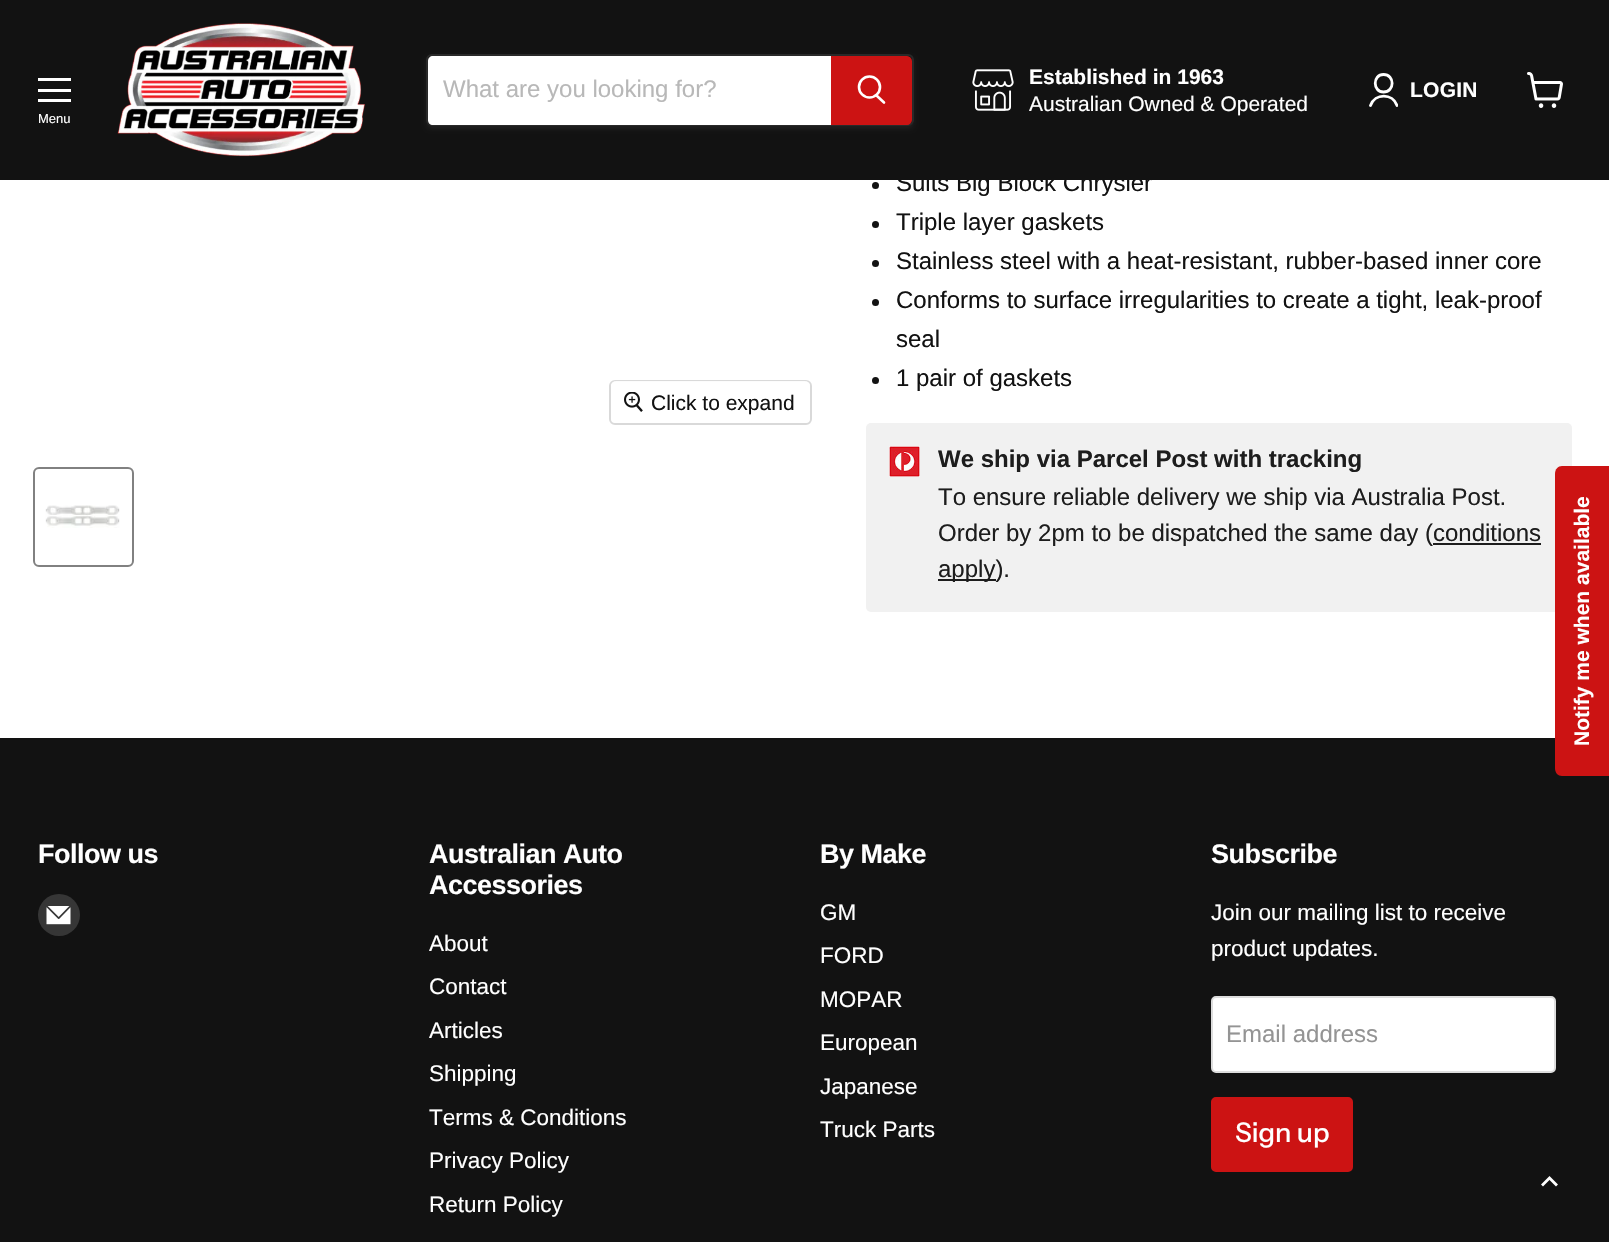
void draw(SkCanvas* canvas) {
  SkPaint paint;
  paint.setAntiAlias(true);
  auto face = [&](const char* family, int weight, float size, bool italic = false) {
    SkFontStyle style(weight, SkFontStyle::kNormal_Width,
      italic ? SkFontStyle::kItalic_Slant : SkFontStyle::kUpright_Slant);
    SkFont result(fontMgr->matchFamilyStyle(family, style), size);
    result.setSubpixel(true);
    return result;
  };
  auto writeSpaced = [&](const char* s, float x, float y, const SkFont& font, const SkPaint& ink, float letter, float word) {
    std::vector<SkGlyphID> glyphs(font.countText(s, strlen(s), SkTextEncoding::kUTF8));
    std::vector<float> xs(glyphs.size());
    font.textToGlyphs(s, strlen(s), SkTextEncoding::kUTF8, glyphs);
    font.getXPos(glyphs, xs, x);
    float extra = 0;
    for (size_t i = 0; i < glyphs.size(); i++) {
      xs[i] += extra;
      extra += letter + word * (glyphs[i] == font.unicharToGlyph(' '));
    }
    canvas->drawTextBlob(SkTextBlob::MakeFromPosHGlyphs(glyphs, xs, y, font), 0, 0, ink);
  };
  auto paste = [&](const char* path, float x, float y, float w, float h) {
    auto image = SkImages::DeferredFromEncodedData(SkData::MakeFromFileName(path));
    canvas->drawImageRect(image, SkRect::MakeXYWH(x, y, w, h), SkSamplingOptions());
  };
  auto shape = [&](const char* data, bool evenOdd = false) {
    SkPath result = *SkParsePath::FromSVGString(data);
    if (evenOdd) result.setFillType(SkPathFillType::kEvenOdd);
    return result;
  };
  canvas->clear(0xffffffff);
  paint.setColor(0xff121212);
  canvas->drawRect(SkRect::MakeXYWH(0, 0, 1609, 180), paint);
  paste("img/1.png", 117, 23, 248, 134);
  canvas->save();
  canvas->clipPath(shape("M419 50H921V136H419ZM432 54H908C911.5 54 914 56.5 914 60V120C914 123.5 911.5 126 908 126H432C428.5 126 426 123.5 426 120V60C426 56.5 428.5 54 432 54Z", true), true);
  paint.setColor(0x1c808080);
  paint.setMaskFilter(SkMaskFilter::MakeBlur(kNormal_SkBlurStyle, 2));
  canvas->drawRoundRect(SkRect::MakeXYWH(426, 57, 488, 72), 6, 6, paint);
  paint.setMaskFilter(nullptr);
  canvas->restore();
  paint.setStroke(true);
  paint.setStrokeWidth(2);
  paint.setColor(0x33808080);
  canvas->drawRoundRect(SkRect::MakeXYWH(427, 55, 486, 70), 5, 5, paint);
  paint.setStroke(false);
  paint.setColor(0xffffffff);
  canvas->drawPath(shape("M433 56H831V125H433C430 125 428 123 428 120V61C428 58 430 56 433 56Z"), paint);
  paint.setColor(0xffcc1313);
  canvas->drawPath(shape("M832 57H907C909 57 911 59 911 61V120C911 122 909 124 907 124H832Z"), paint);
  paint.setStroke(true);
  canvas->drawPath(shape("M832 57H907C909 57 911 59 911 61V120C911 122 909 124 907 124H832Z"), paint);
  paint.setStrokeWidth(2.6f);
  paint.setStrokeCap(SkPaint::kRound_Cap);
  paint.setColor(0xffffffff);
  canvas->drawPath(shape("M884 102.5L876.5 95.5"), paint);
  paint.setStrokeCap(SkPaint::kButt_Cap);
  canvas->drawCircle(869.5f, 87, 10.5f, paint);
  paste("img/2.png", 972, 69, 42, 42);
  paint.setStrokeWidth(2.8f);
  paint.setStrokeCap(SkPaint::kRound_Cap);
  paint.setStrokeJoin(SkPaint::kRound_Join);
  canvas->drawPath(shape("M1383.5 92C1395 92 1395 74.5 1383.5 74.5C1372.5 74.5 1372.5 92 1383.5 92Z"), paint);
  canvas->save();
  canvas->clipRect(SkRect::MakeXYWH(1368, 72, 30, 36));
  canvas->drawPath(shape("M1397 105.5C1392.5 93 1375 93 1370.5 105.5"), paint);
  canvas->restore();
  paste("img/3.png", 1527, 72, 36, 36);
  paint.setStroke(false);
  {
    const struct { float x, y, w, h; SkColor color; } items[] = {
      {38, 78, 33, 3, 0xffffffff},
      {38, 89, 33, 3, 0xffffffff},
      {38, 99, 33, 3, 0xffffffff},
    };
    for (auto [x, y, w, h, color] : items) {
      paint.setColor(color);
      canvas->drawRect(SkRect::MakeXYWH(x, y, w, h), paint);
    }
  }
  paint.setStroke(true);
  paint.setStrokeWidth(2);
  paint.setStrokeCap(SkPaint::kButt_Cap);
  paint.setStrokeJoin(SkPaint::kMiter_Join);
  paint.setColor(0xffd9d9d9);
  canvas->drawRoundRect(SkRect::MakeXYWH(610, 381, 201, 43), 5, 5, paint);
  paint.setStroke(false);
  paint.setColor(0xe6ffffff);
  canvas->drawRoundRect(SkRect::MakeXYWH(611, 381, 199, 42), 5, 5, paint);
  paste("img/4.png", 624, 392, 19, 20);
  paint.setStroke(true);
  paint.setColor(0xff818181);
  canvas->drawRoundRect(SkRect::MakeXYWH(34, 468, 99, 98), 5, 5, paint);
  paste("img/5.png", 45, 505, 75, 23);
  paint.setStroke(false);
  paint.setColor(0xff121212);
  canvas->drawCircle(875.5f, 185.5f, 3.5f, paint);
  canvas->drawCircle(875.5f, 224.5f, 3.5f, paint);
  canvas->drawCircle(875.5f, 263.5f, 3.5f, paint);
  canvas->drawCircle(875.5f, 302.5f, 3.5f, paint);
  canvas->drawCircle(875.5f, 380.5f, 3.5f, paint);
  paint.setColor(0xfff1f1f1);
  canvas->drawRoundRect(SkRect::MakeXYWH(866, 423, 706, 189), 5, 5, paint);
  paste("img/6.png", 889, 446, 31, 31);
  {
    const struct { float x, y, w, h; SkColor color; } items[] = {
      {1433, 543, 108, 2, 0xff1d1d1d},
      {938, 579, 58, 2, 0xff1d1d1d},
      {0, 738, 1609, 504, 0xff121212},
    };
    for (auto [x, y, w, h, color] : items) {
      paint.setColor(color);
      canvas->drawRect(SkRect::MakeXYWH(x, y, w, h), paint);
    }
  }
  paint.setColor(0xffcc1313);
  canvas->drawPath(shape("M1555 768V474C1555 469 1558 466 1562 466H1609V776H1562C1558 776 1555 773 1555 768Z"), paint);
  paint.setColor(0xff363636);
  canvas->drawCircle(59, 915, 21, paint);
  paste("img/7.png", 46, 906, 25, 19);
  paint.setColor(0xffffffff);
  canvas->drawRoundRect(SkRect::MakeXYWH(1212, 997, 343, 75), 4, 4, paint);
  paint.setStroke(true);
  paint.setColor(0xffdddddd);
  canvas->drawRoundRect(SkRect::MakeXYWH(1212, 997, 343, 75), 4, 4, paint);
  paint.setStroke(false);
  paint.setColor(0xffcc1313);
  canvas->drawRoundRect(SkRect::MakeXYWH(1212, 1098, 140, 73), 4, 4, paint);
  paint.setStroke(true);
  canvas->drawRoundRect(SkRect::MakeXYWH(1212, 1098, 140, 73), 4, 4, paint);
  paint.setStrokeWidth(2.8f);
  paint.setStrokeCap(SkPaint::kSquare_Cap);
  paint.setColor(0xffffffff);
  canvas->drawPath(shape("M1549.5 1178L1543 1184.5M1549.5 1178L1556 1184.5"), paint);
  auto f0 = face("Liberation Sans", 400, 24);
  paint.setStroke(false);
  paint.setColor(0xffb8b8b8);
  canvas->drawString("What are you looking for?", 443, 97, f0, paint);
  auto f1 = face("Liberation Sans", 700, 21);
  paint.setColor(0xffffffff);
  canvas->drawString("Established in 1963", 1029, 84, f1, paint);
  auto f2 = face("Liberation Sans", 400, 21);
  canvas->drawString("Australian Owned & Operated", 1029, 111, f2, paint);
  writeSpaced("LOGIN", 1410, 97, f1, paint, 0.25f, 0);
  auto f3 = face("Liberation Sans", 400, 13);
  canvas->drawString("Menu", 38, 123, f3, paint);
  paint.setColor(0xff121212);
  canvas->drawString("Click to expand", 651, 410, f2, paint);
  {
    const struct { const char* s; float x, y; } items[] = {
      {"Suits Big Block Chrysler", 896, 191},
      {"Triple layer gaskets", 896, 230},
      {"Stainless steel with a heat-resistant, rubber-based inner core", 896, 269},
      {"Conforms to surface irregularities to create a tight, leak-proof", 896, 308},
      {"seal", 896, 347},
      {"1 pair of gaskets", 896, 386},
    };
    for (auto [s, x, y] : items) {
      canvas->drawString(s, x, y, f0, paint);
    }
  }
  auto f4 = face("Liberation Sans", 700, 24);
  paint.setColor(0xff1d1d1d);
  canvas->drawString("We ship via Parcel Post with tracking", 938, 467, f4, paint);
  {
    const struct { const char* s; float x, y; } items[] = {
      {"To ensure reliable delivery we ship via Australia Post.", 938, 505},
      {"Order by 2pm to be dispatched the same day (conditions", 938, 541},
      {"apply).", 938, 577},
    };
    for (auto [s, x, y] : items) {
      canvas->drawString(s, x, y, f0, paint);
    }
  }
  paint.setColor(0xffffffff);
  canvas->save();
  canvas->rotate(-90, 1589, 746);
  canvas->drawString("Notify me when available", 1589, 746, f1, paint);
  canvas->restore();
  auto f5 = face("Arimo", 700, 27);
  {
    const struct { const char* s; float x, y; } items[] = {
      {"Follow us", 38, 863},
      {"Australian Auto", 429, 863},
      {"Accessories", 429, 894},
    };
    for (auto [s, x, y] : items) {
      writeSpaced(s, x, y, f5, paint, -0.5f, 0);
    }
  }
  auto f6 = face("Liberation Sans", 400, 22.5f);
  {
    const struct { const char* s; float x, y; } items[] = {
      {"About", 429, 951},
      {"Contact", 429, 994},
      {"Articles", 429, 1038},
      {"Shipping", 429, 1081},
      {"Terms & Conditions", 429, 1125},
      {"Privacy Policy", 429, 1168},
      {"Return Policy", 429, 1212},
    };
    for (auto [s, x, y] : items) {
      canvas->drawString(s, x, y, f6, paint);
    }
  }
  writeSpaced("By Make", 820, 863, f5, paint, -0.5f, 0);
  {
    const struct { const char* s; float x, y; } items[] = {
      {"GM", 820, 920},
      {"FORD", 820, 963},
      {"MOPAR", 820, 1007},
      {"European", 820, 1050},
      {"Japanese", 820, 1094},
      {"Truck Parts", 820, 1137},
    };
    for (auto [s, x, y] : items) {
      canvas->drawString(s, x, y, f6, paint);
    }
  }
  writeSpaced("Subscribe", 1211, 863, f5, paint, -0.5f, 0);
  canvas->drawString("Join our mailing list to receive", 1211, 920, f6, paint);
  canvas->drawString("product updates.", 1211, 956, f6, paint);
  paint.setColor(0xff949494);
  canvas->drawString("Email address", 1226, 1042, f0, paint);
  auto f7 = face("Instrument Sans", 500, 27);
  paint.setColor(0xffffffff);
  canvas->drawString("Sign up", 1235, 1142, f7, paint);
}
